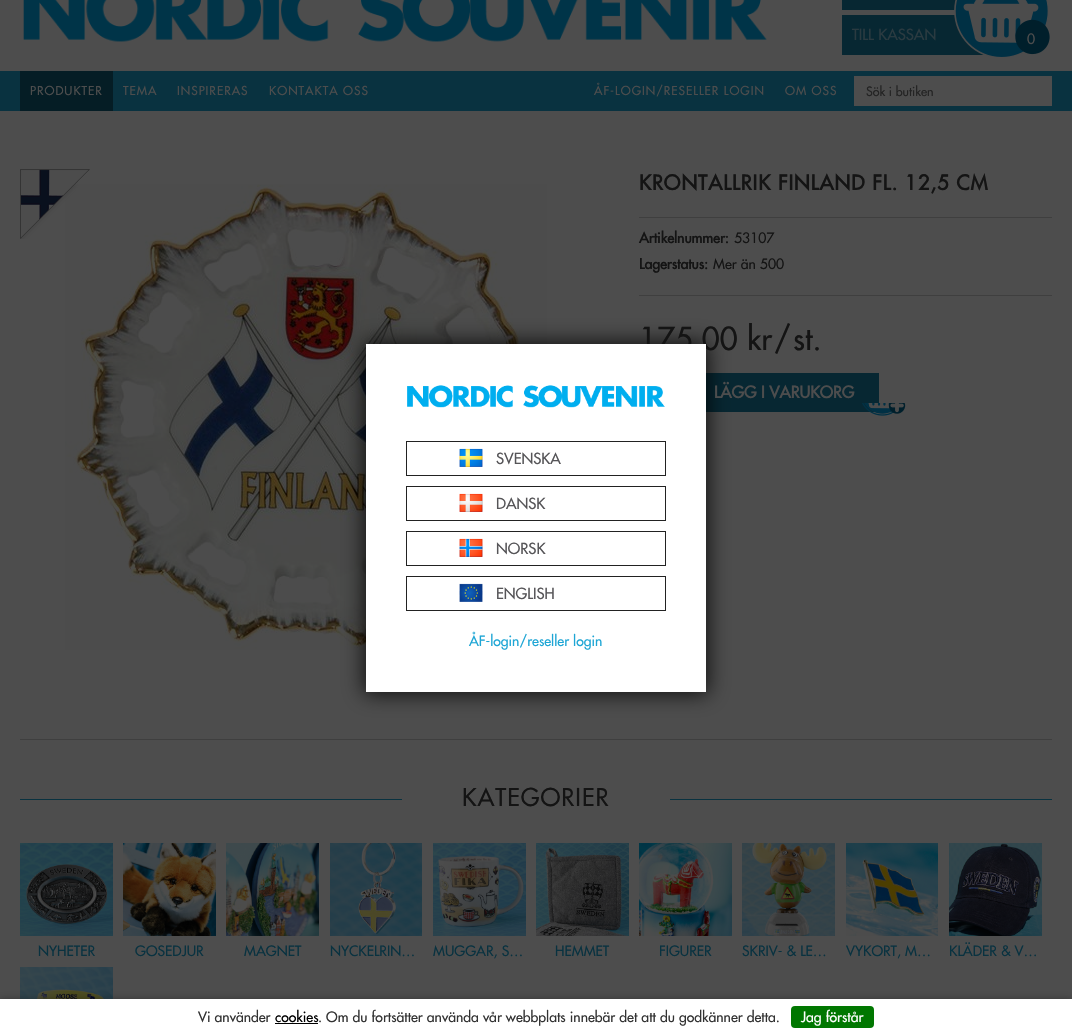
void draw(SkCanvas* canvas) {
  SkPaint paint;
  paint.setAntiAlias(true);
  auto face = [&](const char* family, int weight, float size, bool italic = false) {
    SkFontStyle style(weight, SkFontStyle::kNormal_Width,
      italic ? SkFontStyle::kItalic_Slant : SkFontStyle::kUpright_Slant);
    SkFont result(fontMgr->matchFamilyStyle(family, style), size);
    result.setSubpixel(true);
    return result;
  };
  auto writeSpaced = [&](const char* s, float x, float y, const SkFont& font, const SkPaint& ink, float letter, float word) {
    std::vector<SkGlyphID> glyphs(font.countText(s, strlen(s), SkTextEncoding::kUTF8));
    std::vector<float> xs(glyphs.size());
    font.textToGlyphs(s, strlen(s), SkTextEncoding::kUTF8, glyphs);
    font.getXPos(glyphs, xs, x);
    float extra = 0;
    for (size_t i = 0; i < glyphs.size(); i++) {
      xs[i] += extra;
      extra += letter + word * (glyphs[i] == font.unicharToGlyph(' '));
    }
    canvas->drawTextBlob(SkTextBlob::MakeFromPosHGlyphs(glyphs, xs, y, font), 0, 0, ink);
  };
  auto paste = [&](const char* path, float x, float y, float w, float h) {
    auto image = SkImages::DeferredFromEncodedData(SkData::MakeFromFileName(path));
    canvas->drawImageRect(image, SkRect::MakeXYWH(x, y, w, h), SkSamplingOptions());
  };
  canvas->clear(0xff4d4d4d);
  paste("img/1.png", 23, 0, 744, 42);
  paint.setColor(0xff072732);
  canvas->drawRect(SkRect::MakeXYWH(842, 15, 144, 40), paint);
  canvas->drawRect(SkRect::MakeXYWH(842, 0, 115, 10), paint);
  paste("img/2.png", 954, 0, 96, 57);
  {
    const struct { float x, y, w, h; SkColor color; } items[] = {
      {0, 71, 1072, 40, 0xff093240},
      {20, 71, 93, 40, 0xff051d25},
      {854, 76, 198, 30, 0xff4d4d4d},
    };
    for (auto [x, y, w, h, color] : items) {
      paint.setColor(color);
      canvas->drawRect(SkRect::MakeXYWH(x, y, w, h), paint);
    }
  }
  paste("img/4.png", 65, 184, 482, 466);
  paste("img/3.png", 20, 169, 70, 70);
  {
    const struct { float x, y, w, h; SkColor color; } items[] = {
      {639, 217, 413, 1, 0xff3f3f3f},
      {639, 295, 413, 1, 0xff3f3f3f},
      {706, 373, 173, 39, 0xff072732},
    };
    for (auto [x, y, w, h, color] : items) {
      paint.setColor(color);
      canvas->drawRect(SkRect::MakeXYWH(x, y, w, h), paint);
    }
  }
  paste("img/5.png", 862, 403, 44, 13);
  {
    const struct { float x, y, w, h; SkColor color; } items[] = {
      {20, 739, 1032, 1, 0xff3f3f3f},
      {20, 799, 382, 1, 0xff093240},
      {670, 799, 382, 1, 0xff093240},
    };
    for (auto [x, y, w, h, color] : items) {
      paint.setColor(color);
      canvas->drawRect(SkRect::MakeXYWH(x, y, w, h), paint);
    }
  }
  paste("img/6.png", 20, 843, 93, 93);
  paste("img/7.png", 123, 843, 93, 93);
  paste("img/8.png", 226, 843, 93, 93);
  paste("img/9.png", 330, 843, 92, 93);
  paste("img/10.png", 433, 843, 93, 93);
  paste("img/11.png", 536, 843, 93, 93);
  paste("img/12.png", 639, 843, 93, 93);
  paste("img/13.png", 742, 843, 93, 93);
  paste("img/14.png", 846, 843, 92, 93);
  paste("img/15.png", 949, 843, 93, 93);
  paste("img/16.png", 20, 967, 93, 32);
  paint.setColor(0xcc000000);
  paint.setMaskFilter(SkMaskFilter::MakeBlur(kNormal_SkBlurStyle, 10));
  canvas->drawRect(SkRect::MakeXYWH(364, 342, 344, 352), paint);
  paint.setMaskFilter(nullptr);
  paint.setColor(0x4d000000);
  paint.setMaskFilter(SkMaskFilter::MakeBlur(kNormal_SkBlurStyle, 3.5f));
  canvas->drawRect(SkRect::MakeXYWH(0, 999, 1072, 36), paint);
  paint.setMaskFilter(nullptr);
  paint.setColor(0xffffffff);
  canvas->drawRect(SkRect::MakeXYWH(0, 999, 1072, 36), paint);
  paint.setColor(0xff000000);
  canvas->drawRect(SkRect::MakeXYWH(275, 1023, 43, 1), paint);
  paint.setColor(0xff007700);
  canvas->drawRoundRect(SkRect::MakeXYWH(791, 1006, 83, 22), 4, 4, paint);
  auto f0 = face("Futura", 400, 15);
  paint.setColor(0xff2a3a40);
  canvas->drawString("TILL KASSAN", 852, 40, f0, paint);
  auto f1 = face("Futura", 400, 14);
  paint.setColor(0xff4d4d4d);
  canvas->drawString("0", 1027, 44, f1, paint);
  auto f2 = face("Futura", 400, 12);
  {
    const struct { const char* s; float x, y; } items[] = {
      {"PRODUKTER", 30, 95},
      {"TEMA", 123, 95},
      {"INSPIRERAS", 177, 95},
      {"KONTAKTA OSS", 269, 95},
      {"ÅF-LOGIN/RESELLER LOGIN", 594, 95},
      {"OM OSS", 785, 95},
    };
    for (auto [s, x, y] : items) {
      writeSpaced(s, x, y, f2, paint, 1, 0);
    }
  }
  auto f3 = face("Futura", 400, 12.5f);
  paint.setColor(0xff232323);
  canvas->drawString("Sök i butiken", 866, 96, f3, paint);
  auto f4 = face("Futura", 700, 20);
  paint.setColor(0xff141414);
  writeSpaced("KRONTALLRIK FINLAND FL. 12,5 CM", 639, 190, f4, paint, 1, 0);
  auto f5 = face("Futura", 700, 14);
  canvas->drawString("Artikelnummer:", 639, 243, f5, paint);
  canvas->drawString("53107", 734, 243, f1, paint);
  canvas->drawString("Lagerstatus:", 639, 269, f5, paint);
  canvas->drawString("Mer än 500", 713, 269, f1, paint);
  auto f6 = face("Futura", 400, 31);
  canvas->drawString("175,00", 639, 350, f6, paint);
  canvas->drawString("kr", 747, 350, f6, paint);
  writeSpaced("/ st.", 774, 350, f6, paint, 0, -7);
  auto f7 = face("Futura", 700, 16);
  paint.setColor(0xff4d4d4d);
  canvas->drawString("LÄGG I VARUKORG", 714, 398, f7, paint);
  auto f8 = face("Futura", 400, 24);
  paint.setColor(0xff141414);
  writeSpaced("KATEGORIER", 462, 806, f8, paint, 1, 0);
  paint.setColor(0xff093240);
  {
    const struct { const char* s; float x, y; } items[] = {
      {"NYHETER", 38, 956},
      {"GOSEDJUR", 135, 956},
      {"MAGNET", 244, 956},
      {"NYCKELRIN…", 330, 956},
      {"MUGGAR, S…", 433, 956},
      {"HEMMET", 555, 956},
      {"FIGURER", 659, 956},
      {"SKRIV- & LE…", 742, 956},
      {"VYKORT, M…", 846, 956},
      {"KLÄDER & V…", 949, 956},
    };
    for (auto [s, x, y] : items) {
      canvas->drawString(s, x, y, f1, paint);
    }
  }
  paint.setColor(0xffffffff);
  canvas->drawRect(SkRect::MakeXYWH(366, 344, 340, 348), paint);
  paste("img/17.png", 407, 385, 258, 23);
  paint.setStroke(true);
  paint.setStrokeWidth(1);
  paint.setColor(0xff222222);
  canvas->drawRect(SkRect::MakeXYWH(406.5f, 441.5f, 259, 34), paint);
  paste("img/18.png", 459, 448, 24, 19);
  paint.setStroke(false);
  paint.setColor(0xff565558);
  canvas->drawString("SVENSKA", 496, 464, f0, paint);
  paint.setStroke(true);
  paint.setColor(0xff222222);
  canvas->drawRect(SkRect::MakeXYWH(406.5f, 486.5f, 259, 34), paint);
  paste("img/19.png", 459, 493, 24, 19);
  paint.setStroke(false);
  paint.setColor(0xff565558);
  canvas->drawString("DANSK", 496, 509, f0, paint);
  paint.setStroke(true);
  paint.setColor(0xff222222);
  canvas->drawRect(SkRect::MakeXYWH(406.5f, 531.5f, 259, 34), paint);
  paste("img/20.png", 459, 538, 24, 19);
  paint.setStroke(false);
  paint.setColor(0xff565558);
  canvas->drawString("NORSK", 496, 554, f0, paint);
  paint.setStroke(true);
  paint.setColor(0xff222222);
  canvas->drawRect(SkRect::MakeXYWH(406.5f, 576.5f, 259, 34), paint);
  paste("img/21.png", 459, 583, 24, 19);
  paint.setStroke(false);
  paint.setColor(0xff565558);
  canvas->drawString("ENGLISH", 496, 599, f0, paint);
  paint.setColor(0xff1ea6d5);
  canvas->drawString("ÅF-login/reseller login", 469, 646, f1, paint);
  paint.setColor(0xff333333);
  canvas->drawString("Vi använder", 198, 1022, f1, paint);
  paint.setColor(0xff000000);
  canvas->drawString("cookies", 275, 1022, f1, paint);
  paint.setColor(0xff333333);
  canvas->drawString(". Om du fortsätter använda vår webbplats innebär det att du godkänner detta.", 318, 1022, f1, paint);
  paint.setColor(0xffffffff);
  canvas->drawString("Jag förstår", 801, 1022, f1, paint);
}
